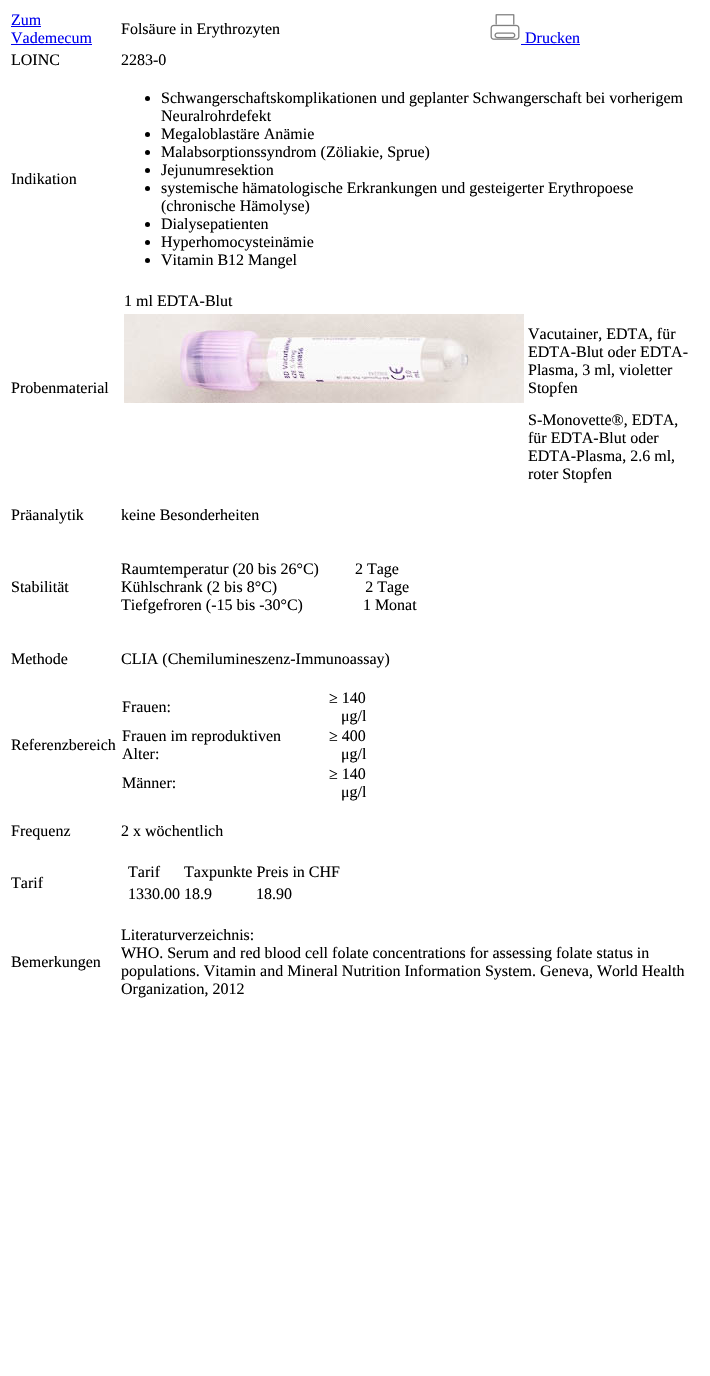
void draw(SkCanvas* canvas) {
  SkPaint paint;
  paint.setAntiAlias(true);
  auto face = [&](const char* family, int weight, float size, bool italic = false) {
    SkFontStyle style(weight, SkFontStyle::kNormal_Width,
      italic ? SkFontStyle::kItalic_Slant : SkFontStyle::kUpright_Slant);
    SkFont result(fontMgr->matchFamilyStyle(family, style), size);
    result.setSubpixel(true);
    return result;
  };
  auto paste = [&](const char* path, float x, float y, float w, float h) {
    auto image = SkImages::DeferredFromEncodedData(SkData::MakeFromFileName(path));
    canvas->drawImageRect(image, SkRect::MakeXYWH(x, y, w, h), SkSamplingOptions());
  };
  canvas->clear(0xffffffff);
  paint.setColor(0xff0000ee);
  canvas->drawRect(SkRect::MakeXYWH(11, 26, 30, 1), paint);
  canvas->drawRect(SkRect::MakeXYWH(11, 44, 81, 1), paint);
  paste("img/1.png", 490, 14, 30, 26);
  canvas->drawRect(SkRect::MakeXYWH(521, 44, 59, 1), paint);
  paint.setColor(0xff000000);
  canvas->drawCircle(147.5f, 98.5f, 2.5f, paint);
  canvas->drawCircle(147.5f, 134.5f, 2.5f, paint);
  canvas->drawCircle(147.5f, 152.5f, 2.5f, paint);
  canvas->drawCircle(147.5f, 170.5f, 2.5f, paint);
  canvas->drawCircle(147.5f, 188.5f, 2.5f, paint);
  canvas->drawCircle(147.5f, 224.5f, 2.5f, paint);
  canvas->drawCircle(147.5f, 242.5f, 2.5f, paint);
  canvas->drawCircle(147.5f, 260.5f, 2.5f, paint);
  paste("img/2.png", 124, 314, 400, 89);
  auto f0 = face("Liberation Serif", 400, 16);
  paint.setColor(0xff0000ee);
  canvas->drawString("Zum", 11, 25, f0, paint);
  canvas->drawString("Vademecum", 11, 43, f0, paint);
  paint.setColor(0xff000000);
  canvas->drawString("Folsäure in Erythrozyten", 121, 34, f0, paint);
  paint.setColor(0xff0000ee);
  canvas->drawString("Drucken", 525, 43, f0, paint);
  paint.setColor(0xff000000);
  {
    const struct { const char* s; float x, y; } items[] = {
      {"LOINC", 11, 65},
      {"2283-0", 121, 65},
      {"Indikation", 11, 184},
      {"Schwangerschaftskomplikationen und geplanter Schwangerschaft bei vorherigem", 161, 103},
      {"Neuralrohrdefekt", 161, 121},
      {"Megaloblastäre Anämie", 161, 139},
      {"Malabsorptionssyndrom (Zöliakie, Sprue)", 161, 157},
      {"Jejunumresektion", 161, 175},
      {"systemische hämatologische Erkrankungen und gesteigerter Erythropoese", 161, 193},
      {"(chronische Hämolyse)", 161, 211},
      {"Dialysepatienten", 161, 229},
      {"Hyperhomocysteinämie", 161, 247},
      {"Vitamin B12 Mangel", 161, 265},
      {"Probenmaterial", 11, 393},
      {"1 ml EDTA-Blut", 124, 306},
      {"Vacutainer, EDTA, für", 528, 339},
      {"EDTA-Blut oder EDTA-", 528, 357},
      {"Plasma, 3 ml, violetter", 528, 375},
      {"Stopfen", 528, 393},
      {"S-Monovette®, EDTA,", 528, 425},
      {"für EDTA-Blut oder", 528, 443},
      {"EDTA-Plasma, 2.6 ml,", 528, 461},
      {"roter Stopfen", 528, 479},
      {"Präanalytik", 11, 520},
      {"keine Besonderheiten", 121, 520},
      {"Stabilität", 11, 592},
      {"Raumtemperatur (20 bis 26°C)         2 Tage", 121, 574},
      {"Kühlschrank (2 bis 8°C)                      2 Tage", 121, 592},
      {"Tiefgefroren (-15 bis -30°C)               1 Monat", 121, 610},
      {"Methode", 11, 664},
      {"CLIA (Chemilumineszenz-Immunoassay)", 121, 664},
      {"Referenzbereich", 11, 750},
      {"Frauen:", 122, 712},
      {"≥ 140", 329, 703},
      {"μg/l", 341, 721},
      {"Frauen im reproduktiven", 122, 741},
      {"Alter:", 122, 759},
      {"≥ 400", 329, 741},
      {"μg/l", 341, 759},
      {"Männer:", 122, 788},
      {"≥ 140", 329, 779},
      {"μg/l", 341, 797},
      {"Frequenz", 11, 836},
      {"2 x wöchentlich", 121, 836},
      {"Tarif", 11, 888},
      {"Tarif", 128, 877},
      {"Taxpunkte Preis in CHF", 184, 877},
      {"1330.00 18.9", 128, 899},
      {"18.90", 256, 899},
      {"Bemerkungen", 11, 967},
      {"Literaturverzeichnis:", 121, 940},
      {"WHO. Serum and red blood cell folate concentrations for assessing folate status in", 121, 958},
      {"populations. Vitamin and Mineral Nutrition Information System. Geneva, World Health", 121, 976},
      {"Organization, 2012", 121, 994},
    };
    for (auto [s, x, y] : items) {
      canvas->drawString(s, x, y, f0, paint);
    }
  }
}
